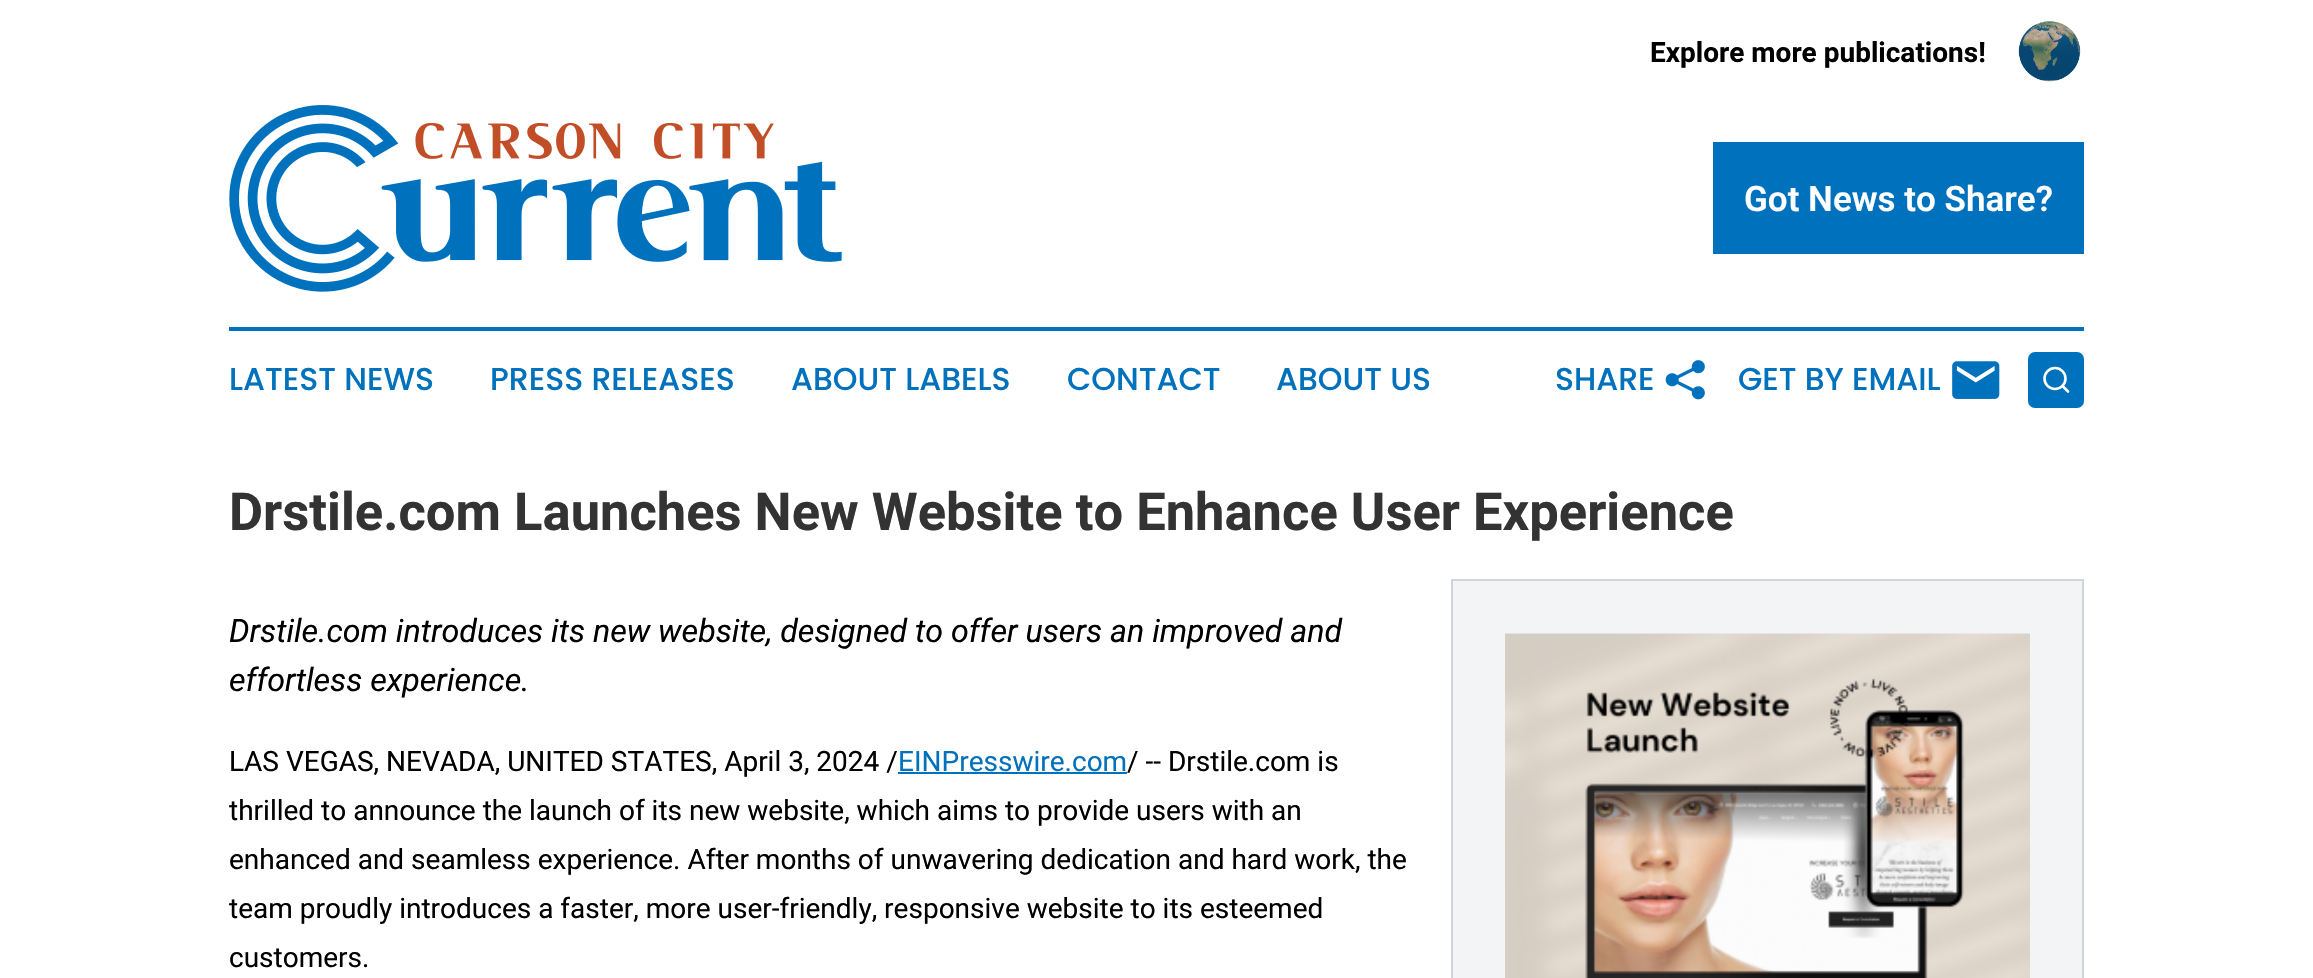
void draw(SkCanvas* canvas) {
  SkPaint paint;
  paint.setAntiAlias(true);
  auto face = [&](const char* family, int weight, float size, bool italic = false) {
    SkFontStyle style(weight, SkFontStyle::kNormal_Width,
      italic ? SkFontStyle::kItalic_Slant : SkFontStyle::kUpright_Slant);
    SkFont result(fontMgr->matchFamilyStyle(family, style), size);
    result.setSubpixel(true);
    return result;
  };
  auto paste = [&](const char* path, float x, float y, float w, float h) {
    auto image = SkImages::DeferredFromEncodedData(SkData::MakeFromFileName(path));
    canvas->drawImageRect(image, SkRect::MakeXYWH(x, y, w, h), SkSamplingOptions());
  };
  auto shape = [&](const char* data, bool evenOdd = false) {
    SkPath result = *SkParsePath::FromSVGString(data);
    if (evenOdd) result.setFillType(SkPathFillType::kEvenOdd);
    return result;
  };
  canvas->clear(0xffffffff);
  paste("img/1.png", 2018, 21, 63, 61);
  paste("img/2.png", 229, 105, 613, 187);
  paint.setColor(0xff0071bc);
  canvas->drawRect(SkRect::MakeXYWH(1713, 142, 371, 112), paint);
  canvas->drawRect(SkRect::MakeXYWH(229, 327, 1855, 4), paint);
  paste("img/3.png", 1665, 360, 40, 40);
  paste("img/4.png", 1952, 361, 48, 38);
  canvas->drawRoundRect(SkRect::MakeXYWH(2028, 352, 56, 56), 7, 7, paint);
  paint.setStroke(true);
  paint.setStrokeWidth(2.6f);
  paint.setColor(0xffffffff);
  canvas->drawCircle(2055, 378.5f, 10.5f, paint);
  paint.setStrokeCap(SkPaint::kRound_Cap);
  paint.setStrokeJoin(SkPaint::kRound_Join);
  canvas->drawPath(shape("M2068 391.5L2062.5 386"), paint);
  paint.setStroke(false);
  paint.setColor(0xfff3f4f6);
  canvas->drawRect(SkRect::MakeXYWH(1452, 580, 631, 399), paint);
  paint.setStroke(true);
  paint.setStrokeWidth(2);
  paint.setStrokeCap(SkPaint::kButt_Cap);
  paint.setStrokeJoin(SkPaint::kMiter_Join);
  paint.setColor(0xffd1d5db);
  canvas->drawRect(SkRect::MakeXYWH(1452, 580, 631, 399), paint);
  paste("img/5.png", 1505, 633, 525, 345);
  paint.setStroke(false);
  paint.setColor(0xff0071bc);
  canvas->drawRect(SkRect::MakeXYWH(898, 772, 229, 2), paint);
  auto f0 = face("Roboto", 700, 28);
  paint.setColor(0xff000000);
  canvas->drawString("Explore more publications!", 1650, 62, f0, paint);
  auto f1 = face("Roboto", 600, 35);
  paint.setColor(0xffffffff);
  canvas->drawString("Got News to Share?", 1744, 211, f1, paint);
  auto f2 = face("Poppins", 500, 31.5f);
  paint.setColor(0xff0071bc);
  {
    const struct { const char* s; float x, y; } items[] = {
      {"LATEST NEWS", 229, 390},
      {"PRESS RELEASES", 490, 390},
      {"ABOUT LABELS", 791, 390},
      {"CONTACT", 1067, 390},
      {"ABOUT US", 1276, 390},
      {"SHARE", 1555, 390},
      {"GET BY EMAIL", 1738, 390},
    };
    for (auto [s, x, y] : items) {
      canvas->drawString(s, x, y, f2, paint);
    }
  }
  auto f3 = face("Roboto", 700, 52.5f);
  paint.setColor(0xff333333);
  canvas->drawString("Drstile.com Launches New Website to Enhance User Experience", 229, 530, f3, paint);
  auto f4 = face("Roboto", 400, 32.2f, true);
  paint.setColor(0xff000000);
  canvas->drawString("Drstile.com introduces its new website, designed to offer users an improved and", 229, 642, f4, paint);
  canvas->drawString("effortless experience.", 229, 691, f4, paint);
  auto f5 = face("Roboto", 400, 28);
  canvas->drawString("LAS VEGAS, NEVADA, UNITED STATES, April 3, 2024 /", 229, 771, f5, paint);
  paint.setColor(0xff0071bc);
  canvas->drawString("EINPresswire.com", 898, 771, f5, paint);
  paint.setColor(0xff000000);
  {
    const struct { const char* s; float x, y; } items[] = {
      {"/ -- Drstile.com is", 1127, 771},
      {"thrilled to announce the launch of its new website, which aims to provide users with an", 229, 820},
      {"enhanced and seamless experience. After months of unwavering dedication and hard work, the", 229, 869},
      {"team proudly introduces a faster, more user-friendly, responsive website to its esteemed", 229, 918},
      {"customers.", 229, 967},
    };
    for (auto [s, x, y] : items) {
      canvas->drawString(s, x, y, f5, paint);
    }
  }
}
